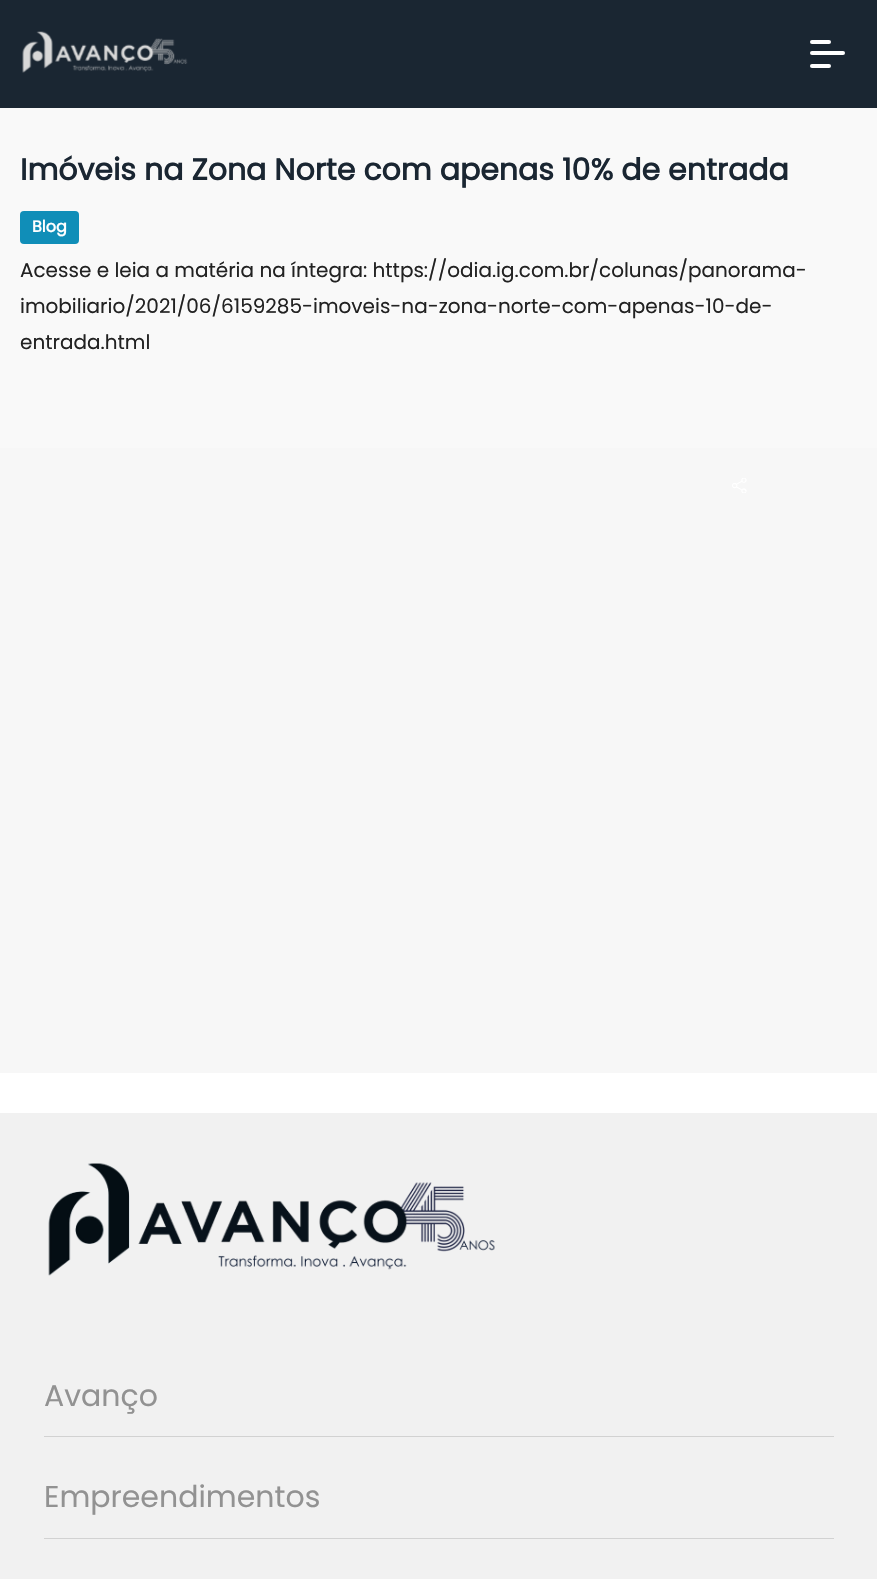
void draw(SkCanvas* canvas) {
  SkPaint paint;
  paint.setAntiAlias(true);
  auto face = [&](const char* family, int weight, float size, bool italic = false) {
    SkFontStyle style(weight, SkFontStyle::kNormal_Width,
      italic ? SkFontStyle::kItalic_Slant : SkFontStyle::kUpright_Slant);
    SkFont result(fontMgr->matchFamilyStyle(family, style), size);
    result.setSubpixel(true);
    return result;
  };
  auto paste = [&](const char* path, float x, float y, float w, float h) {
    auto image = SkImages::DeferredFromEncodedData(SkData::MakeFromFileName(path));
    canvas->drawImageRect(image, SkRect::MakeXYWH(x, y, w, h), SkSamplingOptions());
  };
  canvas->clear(0xffffffff);
  paint.setColor(0xff1a2632);
  canvas->drawRect(SkRect::MakeXYWH(0, 0, 877, 108), paint);
  paste("img/1.png", 22, 31, 166, 42);
  paint.setColor(0xffffffff);
  canvas->drawRoundRect(SkRect::MakeXYWH(810, 40, 21, 4), 2, 2, paint);
  canvas->drawRoundRect(SkRect::MakeXYWH(810, 51, 35, 4), 2, 2, paint);
  canvas->drawRoundRect(SkRect::MakeXYWH(810, 64, 21, 4), 2, 2, paint);
  paint.setColor(0xfff9f9f9);
  canvas->drawRect(SkRect::MakeXYWH(0, 108, 877, 340), paint);
  paint.setColor(0xff108eb8);
  canvas->drawRoundRect(SkRect::MakeXYWH(20, 211, 59, 33), 4, 4, paint);
  paint.setColor(0xfff7f7f7);
  canvas->drawRect(SkRect::MakeXYWH(0, 448, 877, 625), paint);
  paste("img/2.png", 732, 478, 15, 15);
  paint.setColor(0xfff1f1f1);
  canvas->drawRect(SkRect::MakeXYWH(0, 1113, 877, 466), paint);
  paste("img/3.png", 48, 1163, 447, 113);
  paint.setColor(0xffd2d2d2);
  canvas->drawRect(SkRect::MakeXYWH(44, 1436, 790, 1), paint);
  canvas->drawRect(SkRect::MakeXYWH(44, 1538, 790, 1), paint);
  auto f0 = face("Poppins", 700, 30);
  paint.setColor(0xff1a2632);
  canvas->drawString("Imóveis na Zona Norte com apenas 10% de entrada", 20, 180, f0, paint);
  auto f1 = face("Poppins", 700, 16);
  paint.setColor(0xffffffff);
  canvas->drawString("Blog", 32, 232, f1, paint);
  auto f2 = face("Poppins", 400, 20);
  paint.setColor(0xff222222);
  {
    const struct { const char* s; float x, y; } items[] = {
      {"Acesse e leia a matéria na íntegra: https://odia.ig.com.br/colunas/panorama-", 20, 277},
      {"imobiliario/2021/06/6159285-imoveis-na-zona-norte-com-apenas-10-de-", 20, 313},
      {"entrada.html", 20, 349},
    };
    for (auto [s, x, y] : items) {
      canvas->drawString(s, x, y, f2, paint);
    }
  }
  auto f3 = face("Poppins", 400, 30);
  paint.setColor(0xff929292);
  canvas->drawString("Avanço", 44, 1406, f3, paint);
  canvas->drawString("Empreendimentos", 44, 1507, f3, paint);
}
